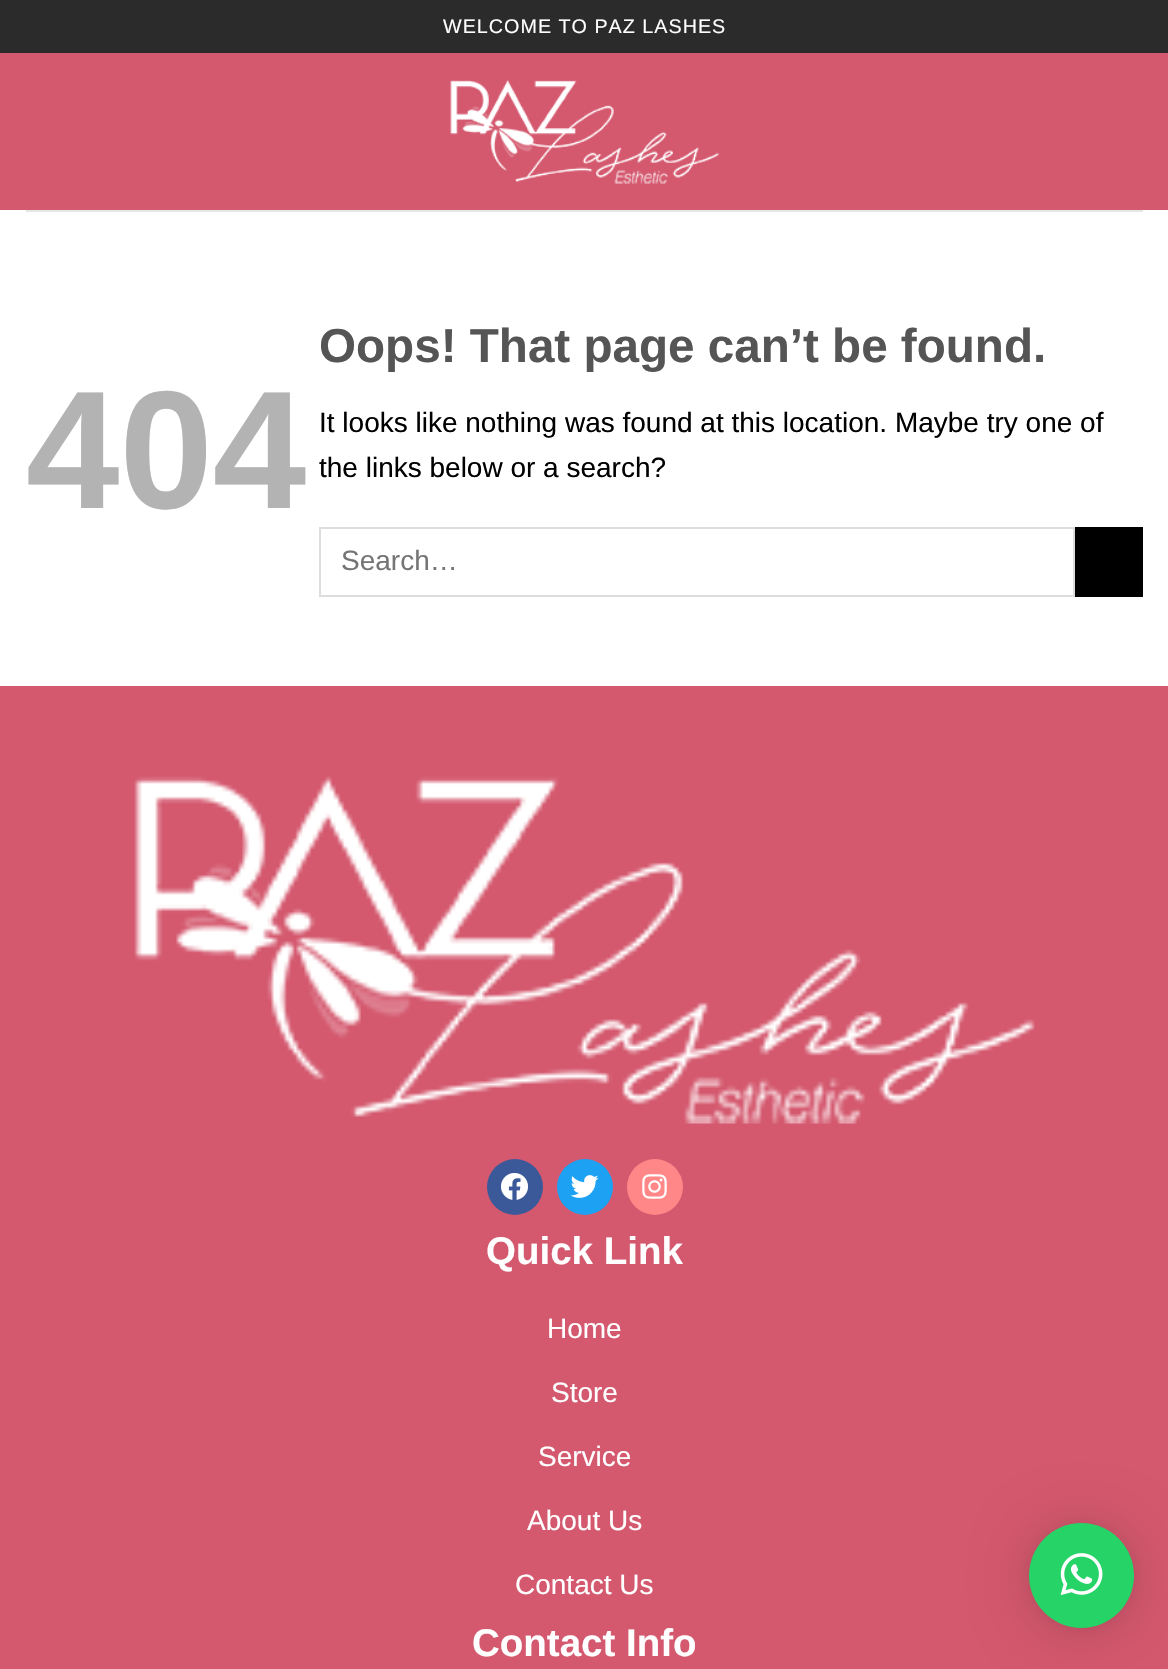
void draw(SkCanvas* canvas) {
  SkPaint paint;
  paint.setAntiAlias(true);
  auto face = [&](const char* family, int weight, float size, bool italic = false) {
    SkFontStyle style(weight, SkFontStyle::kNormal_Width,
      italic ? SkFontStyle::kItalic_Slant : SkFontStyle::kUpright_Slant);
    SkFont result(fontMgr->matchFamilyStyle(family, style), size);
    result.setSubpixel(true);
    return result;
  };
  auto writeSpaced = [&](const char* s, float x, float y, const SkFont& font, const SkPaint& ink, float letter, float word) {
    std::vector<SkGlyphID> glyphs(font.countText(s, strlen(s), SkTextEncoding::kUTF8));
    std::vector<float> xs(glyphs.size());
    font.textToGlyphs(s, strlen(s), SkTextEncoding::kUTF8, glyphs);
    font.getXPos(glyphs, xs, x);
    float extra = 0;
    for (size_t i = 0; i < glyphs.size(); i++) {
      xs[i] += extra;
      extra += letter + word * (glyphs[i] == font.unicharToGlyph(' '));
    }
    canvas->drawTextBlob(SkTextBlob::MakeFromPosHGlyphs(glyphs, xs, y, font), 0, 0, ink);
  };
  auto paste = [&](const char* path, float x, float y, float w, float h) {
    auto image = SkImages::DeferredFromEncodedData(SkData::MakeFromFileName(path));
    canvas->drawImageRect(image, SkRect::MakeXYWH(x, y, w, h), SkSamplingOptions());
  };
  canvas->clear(0xffffffff);
  paint.setColor(0xff2b2b2b);
  canvas->drawRect(SkRect::MakeXYWH(0, 0, 1168, 53), paint);
  paint.setColor(0xffd4586e);
  canvas->drawRect(SkRect::MakeXYWH(0, 53, 1168, 157), paint);
  paste("img/1.png", 450, 80, 269, 104);
  paint.setColor(0xffe6e6e6);
  canvas->drawRect(SkRect::MakeXYWH(26, 210, 1117, 2), paint);
  paint.setStroke(true);
  paint.setStrokeWidth(2);
  paint.setColor(0xffdddddd);
  canvas->drawRect(SkRect::MakeXYWH(320, 528, 754, 68), paint);
  paint.setStroke(false);
  paint.setColor(0xff000000);
  canvas->drawRect(SkRect::MakeXYWH(1075, 527, 68, 70), paint);
  paint.setColor(0xffd4586e);
  canvas->drawRect(SkRect::MakeXYWH(0, 686, 1168, 983), paint);
  paste("img/2.png", 134, 776, 901, 348);
  paint.setColor(0xff3b5998);
  canvas->drawCircle(515, 1187, 28, paint);
  paste("img/3.png", 501, 1173, 28, 27);
  paint.setColor(0xff1da1f2);
  canvas->drawCircle(585, 1187, 28, paint);
  paste("img/4.png", 571, 1175, 28, 23);
  paint.setColor(0xffff8787);
  canvas->drawCircle(655, 1187, 28, paint);
  paste("img/5.png", 642, 1174, 25, 25);
  paint.setColor(0x29000000);
  paint.setMaskFilter(SkMaskFilter::MakeBlur(kNormal_SkBlurStyle, 28));
  canvas->drawRoundRect(SkRect::MakeXYWH(1029, 1526, 105, 105), 52.5f, 52.5f, paint);
  paint.setMaskFilter(nullptr);
  paint.setColor(0x0f000000);
  paint.setMaskFilter(SkMaskFilter::MakeBlur(kNormal_SkBlurStyle, 5));
  canvas->drawRoundRect(SkRect::MakeXYWH(1029, 1524, 105, 105), 52.5f, 52.5f, paint);
  paint.setMaskFilter(nullptr);
  paint.setColor(0xff25d366);
  canvas->drawCircle(1081.5f, 1575.5f, 52.5f, paint);
  paste("img/6.png", 1060, 1553, 43, 43);
  auto f0 = face("Liberation Sans", 400, 19.75f);
  paint.setColor(0xffffffff);
  writeSpaced("WELCOME TO PAZ LASHES", 443, 33, f0, paint, 1, 0);
  auto f1 = face("Liberation Sans", 700, 168);
  paint.setColor(0xffb3b3b3);
  canvas->drawString("404", 26, 508, f1, paint);
  auto f2 = face("Liberation Sans", 700, 47.6f);
  paint.setColor(0xff555555);
  canvas->drawString("Oops! That page can’t be found.", 319, 362, f2, paint);
  auto f3 = face("Liberation Sans", 400, 28);
  paint.setColor(0xff000000);
  canvas->drawString("It looks like nothing was found at this location. Maybe try one of", 319, 432, f3, paint);
  canvas->drawString("the links below or a search?", 319, 477, f3, paint);
  paint.setColor(0xff757575);
  canvas->drawString("Search…", 341, 570, f3, paint);
  auto f4 = face("Liberation Sans", 700, 38.5f);
  paint.setColor(0xffffffff);
  canvas->drawString("Quick Link", 486, 1264, f4, paint);
  {
    const struct { const char* s; float x, y; } items[] = {
      {"Home", 547, 1338},
      {"Store", 551, 1402},
      {"Service", 538, 1466},
      {"About Us", 527, 1530},
      {"Contact Us", 515, 1594},
    };
    for (auto [s, x, y] : items) {
      canvas->drawString(s, x, y, f3, paint);
    }
  }
  canvas->drawString("Contact Info", 472, 1656, f4, paint);
}
